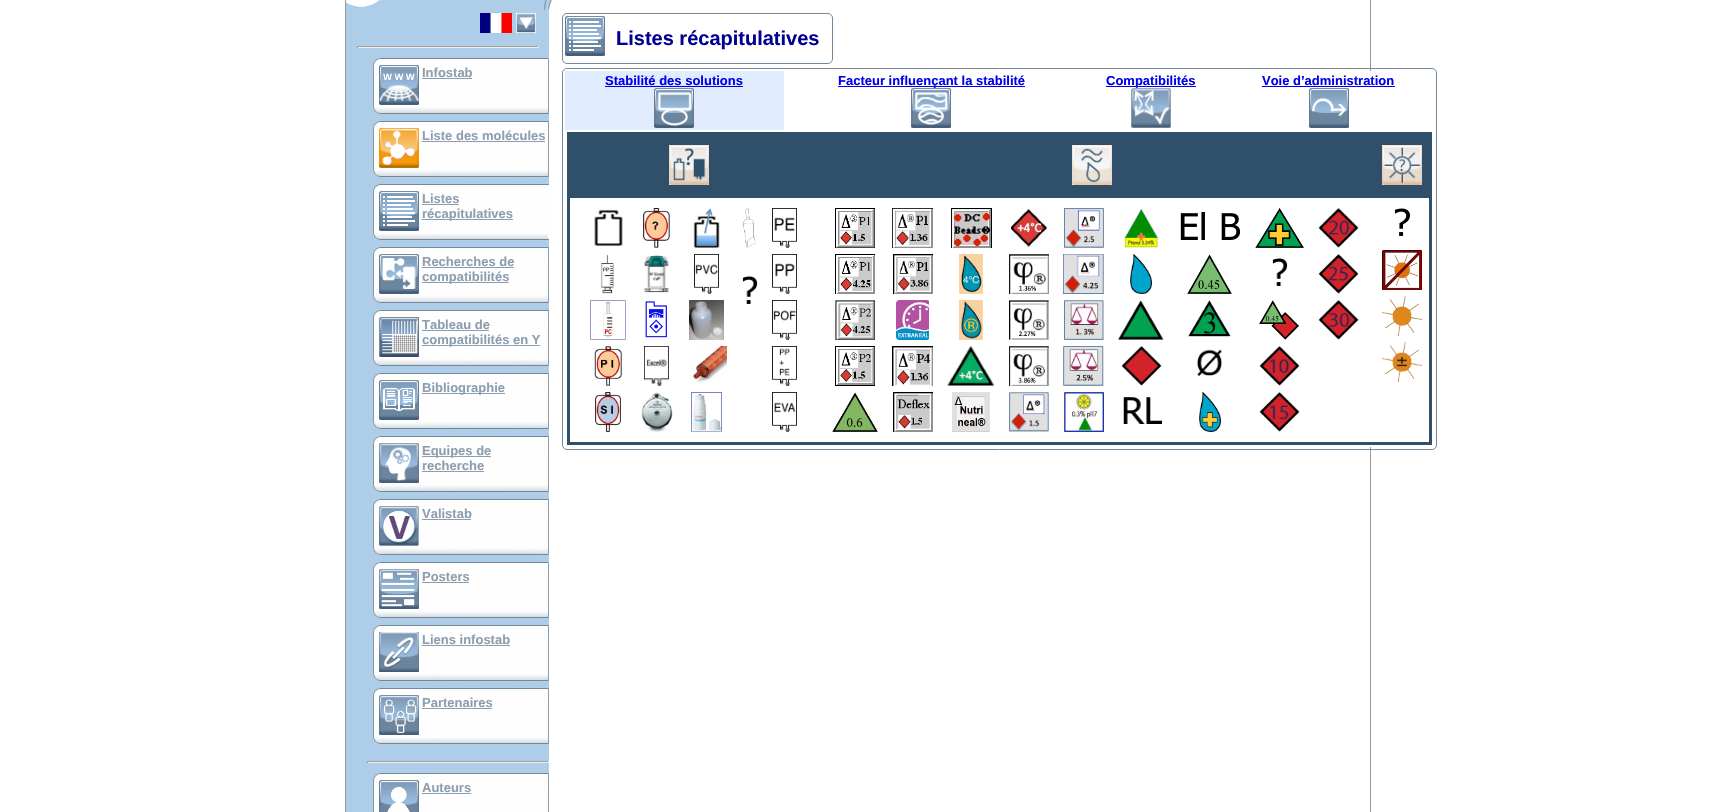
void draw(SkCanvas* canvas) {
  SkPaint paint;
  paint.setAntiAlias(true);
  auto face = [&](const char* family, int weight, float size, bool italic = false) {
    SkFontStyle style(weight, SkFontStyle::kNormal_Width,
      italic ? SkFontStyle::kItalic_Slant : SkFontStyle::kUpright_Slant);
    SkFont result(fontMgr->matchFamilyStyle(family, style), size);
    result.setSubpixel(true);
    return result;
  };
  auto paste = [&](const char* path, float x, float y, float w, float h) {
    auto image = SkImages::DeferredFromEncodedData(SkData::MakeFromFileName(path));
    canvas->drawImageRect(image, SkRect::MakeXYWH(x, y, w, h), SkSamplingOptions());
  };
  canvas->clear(0xffffffff);
  paint.setColor(0xff999999);
  canvas->drawRect(SkRect::MakeXYWH(1370, 0, 1, 812), paint);
  canvas->drawRect(SkRect::MakeXYWH(345, 0, 1, 812), paint);
  paste("img/1.png", 346, 0, 206, 10);
  paint.setStroke(true);
  paint.setStrokeWidth(1);
  paint.setColor(0xff74899a);
  canvas->drawRoundRect(SkRect::MakeXYWH(562.5f, 13.5f, 270, 50), 4.5f, 4.5f, paint);
  paste("img/2.png", 565, 16, 40, 40);
  canvas->drawRoundRect(SkRect::MakeXYWH(562.5f, 68.5f, 874, 381), 4.5f, 4.5f, paint);
  paint.setStroke(false);
  {
    const struct { float x, y, w, h; SkColor color; } items[] = {
      {1370, 71, 1, 376, 0xffffffff},
      {565, 71, 219, 59, 0xffe1ecff},
      {605, 86, 138, 1, 0xff0000ee},
    };
    for (auto [x, y, w, h, color] : items) {
      paint.setColor(color);
      canvas->drawRect(SkRect::MakeXYWH(x, y, w, h), paint);
    }
  }
  paste("img/3.png", 654, 88, 40, 40);
  canvas->drawRect(SkRect::MakeXYWH(838, 86, 187, 1), paint);
  paste("img/4.png", 911, 88, 40, 40);
  canvas->drawRect(SkRect::MakeXYWH(1106, 86, 90, 1), paint);
  paste("img/5.png", 1131, 88, 40, 40);
  canvas->drawRect(SkRect::MakeXYWH(1262, 86, 133, 1), paint);
  paste("img/6.png", 1309, 88, 40, 40);
  paint.setColor(0xff304f6b);
  canvas->drawRect(SkRect::MakeXYWH(567, 132, 865, 313), paint);
  paste("img/7.png", 669, 145, 40, 40);
  paste("img/8.png", 1072, 145, 40, 40);
  paste("img/9.png", 1382, 145, 40, 40);
  paint.setColor(0xffffffff);
  canvas->drawRect(SkRect::MakeXYWH(570, 198, 859, 244), paint);
  paste("img/10.png", 594, 209, 29, 38);
  paste("img/11.png", 600, 254, 14, 40);
  paste("img/12.png", 590, 300, 36, 40);
  paste("img/13.png", 594, 346, 28, 40);
  paste("img/14.png", 595, 392, 26, 40);
  paste("img/15.png", 643, 208, 27, 40);
  paste("img/16.png", 644, 255, 25, 38);
  paste("img/17.png", 645, 301, 22, 37);
  paste("img/18.png", 644, 346, 25, 40);
  paste("img/19.png", 641, 392, 32, 40);
  paste("img/20.png", 693, 208, 27, 40);
  paste("img/21.png", 694, 254, 25, 40);
  paste("img/22.png", 689, 300, 35, 40);
  paste("img/23.png", 687, 346, 40, 37);
  paste("img/24.png", 691, 392, 31, 40);
  paste("img/25.png", 742, 208, 14, 40);
  paste("img/26.png", 742, 276, 16, 28);
  paste("img/27.png", 772, 208, 25, 40);
  paste("img/28.png", 772, 254, 25, 40);
  paste("img/29.png", 772, 300, 25, 40);
  paste("img/30.png", 772, 346, 25, 40);
  paste("img/31.png", 772, 392, 25, 40);
  paste("img/32.png", 835, 208, 40, 40);
  paste("img/33.png", 835, 254, 40, 40);
  paste("img/34.png", 835, 300, 40, 40);
  paste("img/35.png", 835, 346, 40, 40);
  paste("img/36.png", 832, 392, 46, 40);
  paste("img/37.png", 892, 208, 41, 40);
  paste("img/38.png", 893, 254, 40, 40);
  paste("img/39.png", 896, 300, 33, 40);
  paste("img/40.png", 892, 346, 41, 40);
  paste("img/41.png", 893, 392, 40, 40);
  paste("img/42.png", 950, 208, 42, 40);
  paste("img/43.png", 959, 254, 24, 40);
  paste("img/44.png", 959, 300, 24, 40);
  paste("img/45.png", 947, 346, 48, 40);
  paste("img/46.png", 952, 392, 38, 40);
  paste("img/47.png", 1011, 208, 36, 40);
  paste("img/48.png", 1009, 254, 40, 40);
  paste("img/49.png", 1009, 300, 40, 40);
  paste("img/50.png", 1009, 346, 40, 40);
  paste("img/51.png", 1009, 392, 40, 40);
  paste("img/52.png", 1064, 208, 40, 40);
  paste("img/53.png", 1063, 254, 41, 40);
  paste("img/54.png", 1064, 300, 40, 40);
  paste("img/55.png", 1063, 346, 41, 40);
  paste("img/56.png", 1064, 392, 40, 40);
  paste("img/57.png", 1124, 208, 34, 40);
  paste("img/58.png", 1130, 254, 22, 40);
  paste("img/59.png", 1118, 300, 46, 40);
  paste("img/60.png", 1121, 346, 41, 40);
  paste("img/61.png", 1123, 397, 39, 27);
  paste("img/62.png", 1180, 212, 61, 28);
  paste("img/63.png", 1187, 254, 45, 40);
  paste("img/64.png", 1188, 300, 43, 37);
  paste("img/65.png", 1197, 349, 25, 27);
  paste("img/66.png", 1199, 392, 22, 40);
  paste("img/67.png", 1255, 208, 49, 40);
  paste("img/68.png", 1272, 258, 16, 28);
  paste("img/69.png", 1259, 300, 40, 40);
  paste("img/70.png", 1259, 346, 41, 40);
  paste("img/71.png", 1259, 392, 41, 40);
  paste("img/72.png", 1318, 208, 41, 40);
  paste("img/73.png", 1318, 254, 41, 40);
  paste("img/74.png", 1318, 300, 41, 40);
  paste("img/75.png", 1395, 208, 15, 28);
  paste("img/76.png", 1382, 250, 40, 40);
  paste("img/77.png", 1382, 296, 40, 40);
  paste("img/78.png", 1382, 342, 40, 40);
  paint.setColor(0xffaecde9);
  canvas->drawRect(SkRect::MakeXYWH(346, 10, 203, 802), paint);
  paste("img/79.png", 480, 13, 32, 20);
  paste("img/80.png", 516, 13, 20, 20);
  {
    const struct { float x, y, w, h; SkColor color; } items[] = {
      {357, 46, 182, 1, 0xff9f9f9f},
      {538, 46, 1, 2, 0xffeeeeee},
      {357, 47, 182, 1, 0xffeeeeee},
      {357, 46, 1, 2, 0xff9f9f9f},
    };
    for (auto [x, y, w, h, color] : items) {
      paint.setColor(color);
      canvas->drawRect(SkRect::MakeXYWH(x, y, w, h), paint);
    }
  }
  paste("img/81.png", 373, 58, 176, 56);
  paste("img/82.png", 379, 65, 40, 40);
  paint.setColor(0xff8d9eae);
  canvas->drawRect(SkRect::MakeXYWH(422, 78, 50, 1), paint);
  paste("img/81.png", 373, 121, 176, 56);
  paste("img/83.png", 379, 128, 40, 40);
  canvas->drawRect(SkRect::MakeXYWH(422, 141, 123, 1), paint);
  paste("img/84.png", 373, 184, 176, 56);
  paste("img/2.png", 379, 191, 40, 40);
  canvas->drawRect(SkRect::MakeXYWH(422, 204, 37, 1), paint);
  canvas->drawRect(SkRect::MakeXYWH(422, 219, 91, 1), paint);
  paste("img/81.png", 373, 247, 176, 56);
  paste("img/85.png", 379, 254, 40, 40);
  canvas->drawRect(SkRect::MakeXYWH(422, 267, 92, 1), paint);
  canvas->drawRect(SkRect::MakeXYWH(422, 282, 87, 1), paint);
  paste("img/81.png", 373, 310, 176, 56);
  paste("img/86.png", 379, 317, 40, 40);
  canvas->drawRect(SkRect::MakeXYWH(422, 330, 67, 1), paint);
  canvas->drawRect(SkRect::MakeXYWH(422, 345, 118, 1), paint);
  paste("img/81.png", 373, 373, 176, 56);
  paste("img/87.png", 379, 380, 40, 40);
  canvas->drawRect(SkRect::MakeXYWH(422, 393, 83, 1), paint);
  paste("img/81.png", 373, 436, 176, 56);
  paste("img/88.png", 379, 443, 40, 40);
  canvas->drawRect(SkRect::MakeXYWH(422, 456, 69, 1), paint);
  canvas->drawRect(SkRect::MakeXYWH(422, 471, 62, 1), paint);
  paste("img/81.png", 373, 499, 176, 56);
  paste("img/89.png", 379, 506, 40, 40);
  canvas->drawRect(SkRect::MakeXYWH(422, 519, 49, 1), paint);
  paste("img/81.png", 373, 562, 176, 56);
  paste("img/90.png", 379, 569, 40, 40);
  canvas->drawRect(SkRect::MakeXYWH(422, 582, 47, 1), paint);
  paste("img/81.png", 373, 625, 176, 56);
  paste("img/91.png", 379, 632, 40, 40);
  canvas->drawRect(SkRect::MakeXYWH(422, 645, 88, 1), paint);
  paste("img/81.png", 373, 688, 176, 56);
  paste("img/92.png", 379, 695, 40, 40);
  {
    const struct { float x, y, w, h; SkColor color; } items[] = {
      {422, 708, 70, 1, 0xff8d9eae},
      {367, 761, 182, 1, 0xff9f9f9f},
      {548, 761, 1, 2, 0xffeeeeee},
      {367, 762, 182, 1, 0xffeeeeee},
      {367, 761, 1, 2, 0xff9f9f9f},
    };
    for (auto [x, y, w, h, color] : items) {
      paint.setColor(color);
      canvas->drawRect(SkRect::MakeXYWH(x, y, w, h), paint);
    }
  }
  paste("img/93.png", 373, 773, 176, 39);
  paste("img/94.png", 379, 780, 40, 32);
  paint.setColor(0xff8d9eae);
  canvas->drawRect(SkRect::MakeXYWH(422, 793, 49, 1), paint);
  auto f0 = face("Liberation Sans", 700, 20);
  paint.setColor(0xff000091);
  canvas->drawString("Listes récapitulatives", 616, 45, f0, paint);
  auto f1 = face("Liberation Sans", 700, 13);
  paint.setColor(0xff0000ee);
  {
    const struct { const char* s; float x, y; } items[] = {
      {"Stabilité des solutions", 605, 85},
      {"Facteur influençant la stabilité", 838, 85},
      {"Compatibilités", 1106, 85},
      {"Voie d’administration", 1262, 85},
    };
    for (auto [s, x, y] : items) {
      canvas->drawString(s, x, y, f1, paint);
    }
  }
  paint.setColor(0xff8d9eae);
  {
    const struct { const char* s; float x, y; } items[] = {
      {"Infostab", 422, 77},
      {"Liste des molécules", 422, 140},
      {"Listes", 422, 203},
      {"récapitulatives", 422, 218},
      {"Recherches de", 422, 266},
      {"compatibilités", 422, 281},
      {"Tableau de", 422, 329},
      {"compatibilités en Y", 422, 344},
      {"Bibliographie", 422, 392},
      {"Equipes de", 422, 455},
      {"recherche", 422, 470},
      {"Valistab", 422, 518},
      {"Posters", 422, 581},
      {"Liens infostab", 422, 644},
      {"Partenaires", 422, 707},
      {"Auteurs", 422, 792},
    };
    for (auto [s, x, y] : items) {
      canvas->drawString(s, x, y, f1, paint);
    }
  }
}
